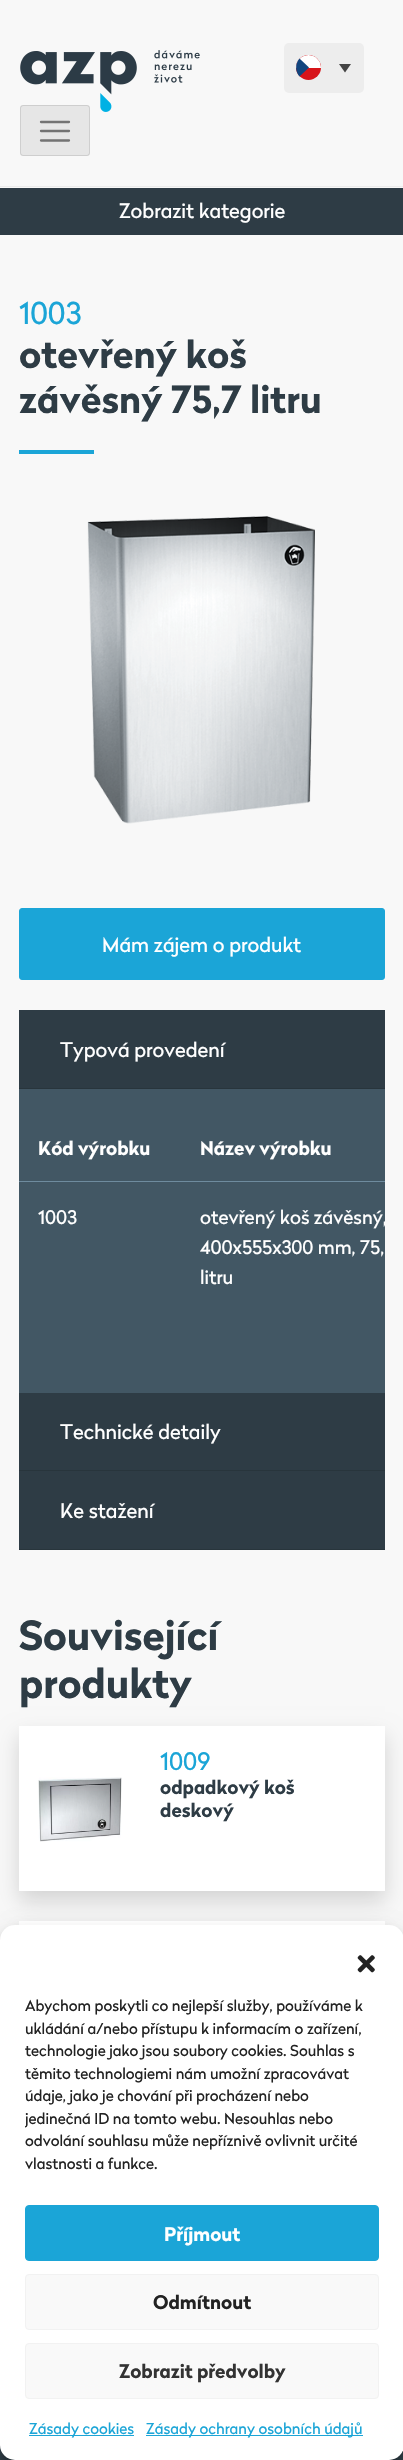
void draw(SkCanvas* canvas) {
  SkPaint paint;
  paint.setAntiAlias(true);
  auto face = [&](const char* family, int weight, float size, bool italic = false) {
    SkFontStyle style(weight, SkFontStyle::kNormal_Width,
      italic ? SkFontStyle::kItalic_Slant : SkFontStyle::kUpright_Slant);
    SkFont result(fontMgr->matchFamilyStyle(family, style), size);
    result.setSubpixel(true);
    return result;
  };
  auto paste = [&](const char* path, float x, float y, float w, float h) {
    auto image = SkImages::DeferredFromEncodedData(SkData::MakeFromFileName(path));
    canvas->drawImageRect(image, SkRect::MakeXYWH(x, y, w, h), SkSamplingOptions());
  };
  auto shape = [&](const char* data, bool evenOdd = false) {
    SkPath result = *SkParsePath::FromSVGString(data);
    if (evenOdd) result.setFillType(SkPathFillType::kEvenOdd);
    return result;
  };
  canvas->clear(0xfff8f8f8);
  paint.setColor(0xffebebeb);
  canvas->drawRect(SkRect::MakeXYWH(0, 186, 403, 1), paint);
  paint.setColor(0xffe6e6e6);
  canvas->drawRoundRect(SkRect::MakeXYWH(20, 105, 70, 51), 3, 3, paint);
  paint.setStroke(true);
  paint.setStrokeWidth(1);
  paint.setColor(0x1a000000);
  canvas->drawRoundRect(SkRect::MakeXYWH(20.5f, 105.5f, 69, 50), 2.5f, 2.5f, paint);
  paste("img/1.png", 20, 50, 180, 62);
  paint.setStroke(false);
  paint.setColor(0xffededed);
  canvas->drawRoundRect(SkRect::MakeXYWH(284, 43, 80, 50), 5, 5, paint);
  paint.setColor(0xffd7141a);
  canvas->drawCircle(308.5f, 67.5f, 12.5f, paint);
  canvas->save();
  canvas->clipPath(shape("M308.5 55C315.5 55 321 60.5 321 67.5C321 74.5 315.5 80 308.5 80C301.5 80 296 74.5 296 67.5C296 60.5 301.5 55 308.5 55Z"), true);
  paint.setColor(0xffffffff);
  canvas->drawPath(shape("M308.5 55C315.5 55 321 60.5 321 67.5V68H296V67.5C296 60.5 301.5 55 308.5 55Z"), paint);
  canvas->restore();
  paint.setColor(0xff11457e);
  canvas->drawPath(shape("M309 67.5L299.5 76.5C295 71.5 295 63.5 299.5 58.5Z"), paint);
  paint.setColor(0xff444444);
  canvas->drawPath(shape("M339 64H351L345 72.5Z"), paint);
  paint.setStroke(true);
  paint.setStrokeWidth(2.3f);
  paint.setStrokeCap(SkPaint::kRound_Cap);
  paint.setColor(0xff737373);
  canvas->drawPath(shape("M41 122H69M41 131H69M41 140.5H69"), paint);
  paint.setStroke(false);
  paint.setColor(0xff2e3c45);
  canvas->drawRect(SkRect::MakeXYWH(0, 188, 403, 47), paint);
  paint.setColor(0xff1ba5d7);
  canvas->drawRect(SkRect::MakeXYWH(19, 450, 75, 4), paint);
  paste("img/2.png", 87, 516, 228, 308);
  canvas->drawRoundRect(SkRect::MakeXYWH(19.5f, 908.5f, 365, 71), 2.5f, 2.5f, paint);
  paint.setStroke(true);
  paint.setStrokeWidth(1);
  paint.setStrokeCap(SkPaint::kButt_Cap);
  canvas->drawRoundRect(SkRect::MakeXYWH(19.5f, 908.5f, 365, 71), 2.5f, 2.5f, paint);
  paint.setStroke(false);
  {
    const struct { float x, y, w, h; SkColor color; } items[] = {
      {19, 1010, 366, 78, 0xff2e3c45},
      {19, 1088, 366, 1, 0xff28353c},
      {19, 1089, 366, 304, 0xff425764},
      {19, 1181, 366, 1, 0xff6e8b9e},
      {19, 1393, 366, 77, 0xff2e3c45},
      {19, 1470, 366, 1, 0xff28353c},
      {19, 1471, 366, 78, 0xff2e3c45},
      {19, 1549, 366, 1, 0xff28353c},
    };
    for (auto [x, y, w, h, color] : items) {
      paint.setColor(color);
      canvas->drawRect(SkRect::MakeXYWH(x, y, w, h), paint);
    }
  }
  paint.setColor(0x26000000);
  paint.setMaskFilter(SkMaskFilter::MakeBlur(kNormal_SkBlurStyle, 10));
  canvas->drawRect(SkRect::MakeXYWH(19, 1736, 366, 165), paint);
  paint.setMaskFilter(nullptr);
  paint.setColor(0xffffffff);
  canvas->drawRect(SkRect::MakeXYWH(19, 1726, 366, 165), paint);
  paste("img/3.png", 38, 1777, 84, 65);
  paint.setColor(0x26000000);
  paint.setMaskFilter(SkMaskFilter::MakeBlur(kNormal_SkBlurStyle, 10));
  canvas->drawRect(SkRect::MakeXYWH(19, 1931, 366, 165), paint);
  paint.setMaskFilter(nullptr);
  paint.setColor(0xffffffff);
  canvas->drawRect(SkRect::MakeXYWH(19, 1921, 366, 4), paint);
  paint.setColor(0xff34444e);
  canvas->drawRect(SkRect::MakeXYWH(0, 2445, 403, 15), paint);
  paint.setColor(0x3b000000);
  paint.setMaskFilter(SkMaskFilter::MakeBlur(kNormal_SkBlurStyle, 4));
  canvas->drawRoundRect(SkRect::MakeXYWH(0, 1933, 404, 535), 15, 15, paint);
  paint.setMaskFilter(nullptr);
  paint.setColor(0x30000000);
  paint.setMaskFilter(SkMaskFilter::MakeBlur(kNormal_SkBlurStyle, 12.5f));
  canvas->drawRoundRect(SkRect::MakeXYWH(0, 1938, 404, 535), 15, 15, paint);
  paint.setMaskFilter(nullptr);
  paint.setColor(0xffffffff);
  canvas->drawRoundRect(SkRect::MakeXYWH(0, 1925, 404, 535), 15, 15, paint);
  paste("img/4.png", 357, 1955, 18, 18);
  paint.setColor(0xff1ba5d7);
  canvas->drawRoundRect(SkRect::MakeXYWH(25.5f, 2205.5f, 353, 55), 3.5f, 3.5f, paint);
  paint.setStroke(true);
  canvas->drawRoundRect(SkRect::MakeXYWH(25.5f, 2205.5f, 353, 55), 3.5f, 3.5f, paint);
  paint.setStroke(false);
  paint.setColor(0xfff9f9f9);
  canvas->drawRoundRect(SkRect::MakeXYWH(25.5f, 2274.5f, 353, 55), 3.5f, 3.5f, paint);
  paint.setStroke(true);
  paint.setColor(0xfff2f2f2);
  canvas->drawRoundRect(SkRect::MakeXYWH(25.5f, 2274.5f, 353, 55), 3.5f, 3.5f, paint);
  paint.setStroke(false);
  paint.setColor(0xfff9f9f9);
  canvas->drawRoundRect(SkRect::MakeXYWH(25.5f, 2343.5f, 353, 55), 3.5f, 3.5f, paint);
  paint.setStroke(true);
  paint.setColor(0xfff2f2f2);
  canvas->drawRoundRect(SkRect::MakeXYWH(25.5f, 2343.5f, 353, 55), 3.5f, 3.5f, paint);
  paint.setStroke(false);
  paint.setColor(0xff1ba5d7);
  canvas->drawRect(SkRect::MakeXYWH(29, 2435, 105, 1), paint);
  canvas->drawRect(SkRect::MakeXYWH(146, 2435, 217, 1), paint);
  auto f0 = face("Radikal", 400, 20);
  paint.setColor(0xffffffff);
  canvas->drawString("Zobrazit kategorie", 119, 218, f0, paint);
  auto f1 = face("Radikal", 400, 30);
  paint.setColor(0xff1ba5d7);
  canvas->drawString("1003", 19, 324, f1, paint);
  auto f2 = face("Radikal", 700, 37.5f);
  paint.setColor(0xff2e3c45);
  canvas->drawString("otevřený koš", 19, 368, f2, paint);
  canvas->drawString("závěsný 75,7 litru", 19, 413, f2, paint);
  paint.setColor(0xffffffff);
  canvas->drawString("Mám zájem o produkt", 102, 952, f0, paint);
  canvas->drawString("Typová provedení", 60, 1057, f0, paint);
  auto f3 = face("Radikal", 700, 18.75f);
  canvas->drawString("Kód výrobku", 38, 1155, f3, paint);
  canvas->drawString("Název výrobku", 200, 1155, f3, paint);
  auto f4 = face("Radikal", 400, 18.75f);
  canvas->drawString("1003", 38, 1224, f4, paint);
  canvas->save();
  canvas->clipRect(SkRect::MakeXYWH(19, 1114, 366, 216));
  canvas->drawString("otevřený koš závěsný,", 200, 1224, f4, paint);
  canvas->restore();
  canvas->drawString("400x555x300 mm, 75,", 200, 1254, f4, paint);
  canvas->drawString("litru", 200, 1284, f4, paint);
  canvas->drawString("Technické detaily", 60, 1439, f0, paint);
  canvas->drawString("Ke stažení", 60, 1518, f0, paint);
  auto f5 = face("Radikal", 700, 40);
  paint.setColor(0xff2e3c45);
  canvas->drawString("Související", 19, 1650, f5, paint);
  canvas->drawString("produkty", 19, 1698, f5, paint);
  auto f6 = face("Radikal", 400, 24);
  paint.setColor(0xff1ba5d7);
  canvas->drawString("1009", 160, 1770, f6, paint);
  paint.setColor(0xff2e3c45);
  canvas->drawString("odpadkový koš", 160, 1794, f3, paint);
  canvas->drawString("deskový", 160, 1817, f3, paint);
  auto f7 = face("Radikal", 400, 15);
  paint.setColor(0xff222222);
  {
    const struct { const char* s; float x, y; } items[] = {
      {"Abychom poskytli co nejlepší služby, používáme k", 25, 2011},
      {"ukládání a/nebo přístupu k informacím o zařízení,", 25, 2034},
      {"technologie jako jsou soubory cookies. Souhlas s", 25, 2056},
      {"těmito technologiemi nám umožní zpracovávat", 25, 2079},
      {"údaje, jako je chování při procházení nebo", 25, 2101},
    };
    for (auto [s, x, y] : items) {
      canvas->drawString(s, x, y, f7, paint);
    }
  }
  canvas->save();
  canvas->clipRect(SkRect::MakeXYWH(25, 1994, 354, 186));
  canvas->drawString("jedinečná ID na tomto webu. Nesouhlas nebo", 25, 2124, f7, paint);
  canvas->restore();
  canvas->drawString("odvolání souhlasu může nepříznivě ovlivnit určité", 25, 2146, f7, paint);
  canvas->drawString("vlastnosti a funkce.", 25, 2169, f7, paint);
  paint.setColor(0xffffffff);
  canvas->drawString("Příjmout", 164, 2241, f3, paint);
  paint.setColor(0xff222222);
  canvas->drawString("Odmítnout", 153, 2309, f3, paint);
  paint.setColor(0xff333333);
  canvas->drawString("Zobrazit předvolby", 119, 2378, f3, paint);
  paint.setColor(0xff1ba5d7);
  canvas->drawString("Zásady cookies", 29, 2434, f7, paint);
  canvas->drawString("Zásady ochrany osobních údajů", 146, 2434, f7, paint);
}
